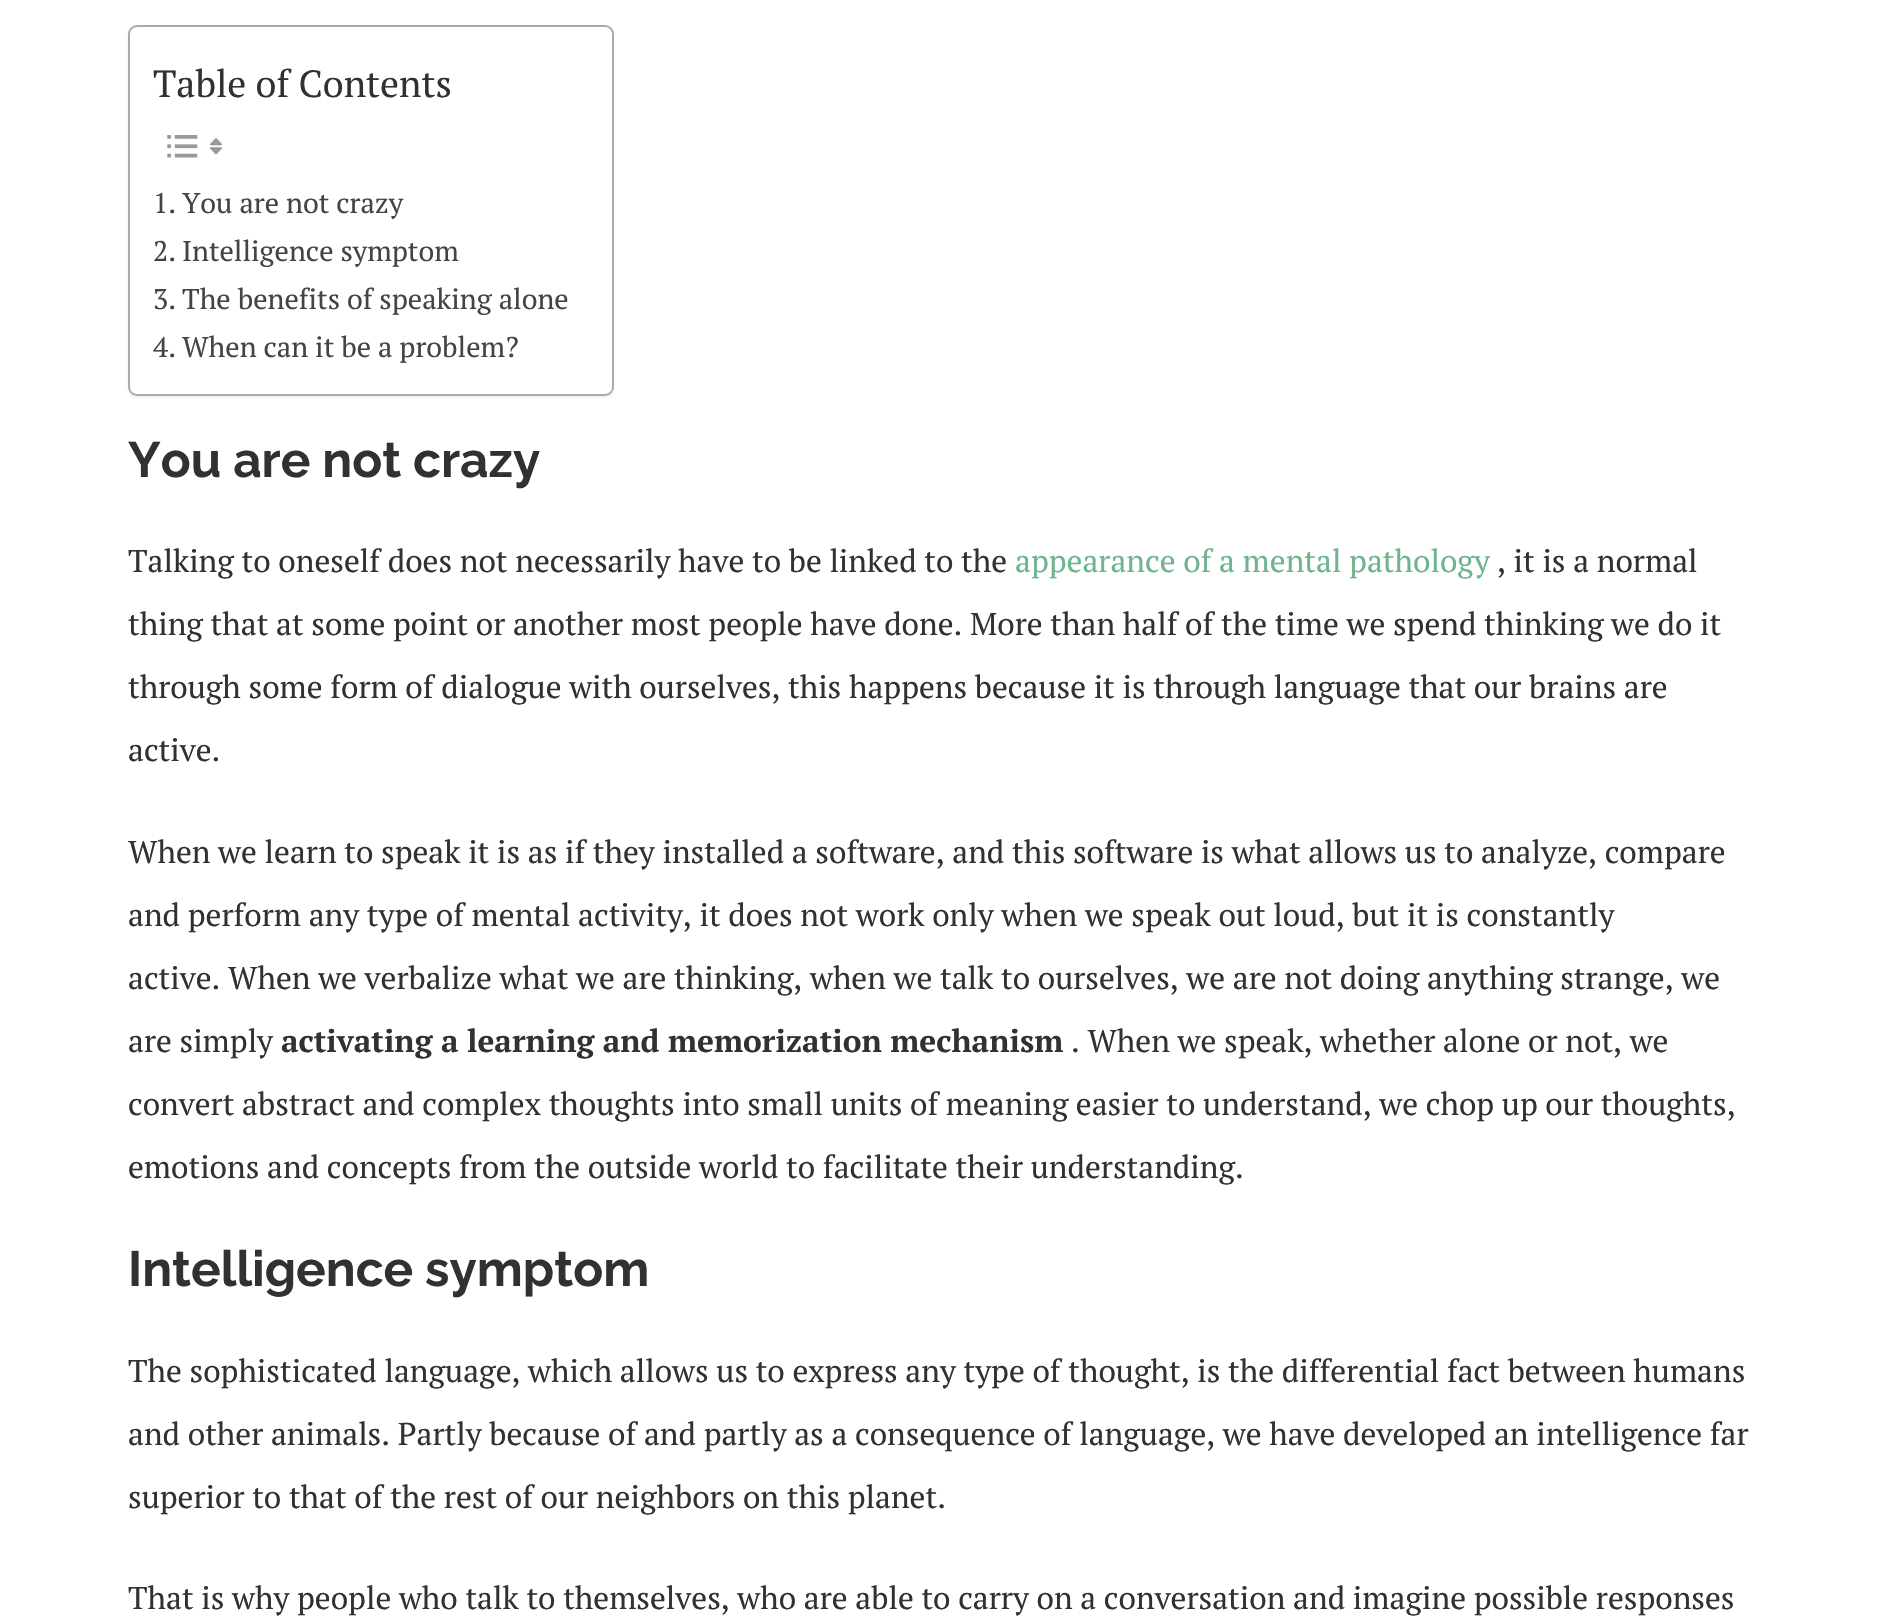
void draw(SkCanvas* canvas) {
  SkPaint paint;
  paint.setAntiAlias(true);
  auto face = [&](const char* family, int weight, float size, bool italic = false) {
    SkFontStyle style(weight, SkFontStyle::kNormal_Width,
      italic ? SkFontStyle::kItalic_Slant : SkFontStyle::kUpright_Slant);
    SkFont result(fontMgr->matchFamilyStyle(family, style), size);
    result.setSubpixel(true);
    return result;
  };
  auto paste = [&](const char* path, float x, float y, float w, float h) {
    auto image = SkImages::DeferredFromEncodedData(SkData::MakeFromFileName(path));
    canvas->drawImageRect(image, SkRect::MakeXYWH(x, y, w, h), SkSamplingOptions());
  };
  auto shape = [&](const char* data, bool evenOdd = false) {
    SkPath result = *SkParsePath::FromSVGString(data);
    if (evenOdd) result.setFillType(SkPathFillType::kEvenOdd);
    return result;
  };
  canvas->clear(0xffffffff);
  canvas->save();
  canvas->clipPath(shape("M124 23H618V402H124ZM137 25H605C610 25 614 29 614 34V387C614 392 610 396 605 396H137C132 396 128 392 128 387V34C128 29 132 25 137 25Z", true), true);
  paint.setColor(0x0d000000);
  paint.setMaskFilter(SkMaskFilter::MakeBlur(kNormal_SkBlurStyle, 1));
  canvas->drawRoundRect(SkRect::MakeXYWH(128, 27, 486, 371), 9, 9, paint);
  paint.setMaskFilter(nullptr);
  canvas->restore();
  paint.setStroke(true);
  paint.setStrokeWidth(2);
  paint.setColor(0xffaaaaaa);
  canvas->drawRoundRect(SkRect::MakeXYWH(129, 26, 484, 369), 8, 8, paint);
  paste("img/1.png", 167, 135, 31, 23);
  paste("img/2.png", 209, 138, 13, 17);
  auto f0 = face("PT Serif", 400, 37.75f);
  paint.setStroke(false);
  paint.setColor(0xff313131);
  canvas->drawString("Table of Contents", 153, 97, f0, paint);
  auto f1 = face("PT Serif", 400, 28.5f);
  paint.setColor(0xff444444);
  {
    const struct { const char* s; float x, y; } items[] = {
      {"1.", 153, 213},
      {"You are not crazy", 182, 213},
      {"2.", 153, 261},
      {"Intelligence symptom", 182, 261},
      {"3.", 153, 309},
      {"The benefits of speaking alone", 182, 309},
      {"4.", 153, 357},
      {"When can it be a problem?", 182, 357},
    };
    for (auto [s, x, y] : items) {
      canvas->drawString(s, x, y, f1, paint);
    }
  }
  auto f2 = face("Raleway", 700, 49.5f);
  paint.setColor(0xff313131);
  canvas->drawString("You are not crazy", 128, 477, f2, paint);
  auto f3 = face("PT Serif", 400, 31.5f);
  canvas->drawString("Talking to oneself does not necessarily have to be linked to the", 128, 572, f3, paint);
  paint.setColor(0xff6eb48c);
  canvas->drawString("appearance of a mental pathology", 1015, 572, f3, paint);
  paint.setColor(0xff313131);
  {
    const struct { const char* s; float x, y; } items[] = {
      {", it is a normal", 1497, 572},
      {"thing that at some point or another most people have done. More than half of the time we spend thinking we do it", 128, 635},
      {"through some form of dialogue with ourselves, this happens because it is through language that our brains are", 128, 698},
      {"active.", 128, 761},
      {"When we learn to speak it is as if they installed a software, and this software is what allows us to analyze, compare", 128, 863},
      {"and perform any type of mental activity, it does not work only when we speak out loud, but it is constantly", 128, 926},
      {"active. When we verbalize what we are thinking, when we talk to ourselves, we are not doing anything strange, we", 128, 989},
      {"are simply", 128, 1052},
    };
    for (auto [s, x, y] : items) {
      canvas->drawString(s, x, y, f3, paint);
    }
  }
  auto f4 = face("PT Serif", 700, 31.5f);
  canvas->drawString("activating a learning and memorization mechanism", 281, 1052, f4, paint);
  {
    const struct { const char* s; float x, y; } items[] = {
      {". When we speak, whether alone or not, we", 1071, 1052},
      {"convert abstract and complex thoughts into small units of meaning easier to understand, we chop up our thoughts,", 128, 1115},
      {"emotions and concepts from the outside world to facilitate their understanding.", 128, 1178},
    };
    for (auto [s, x, y] : items) {
      canvas->drawString(s, x, y, f3, paint);
    }
  }
  canvas->drawString("Intelligence symptom", 128, 1286, f2, paint);
  {
    const struct { const char* s; float x, y; } items[] = {
      {"The sophisticated language, which allows us to express any type of thought, is the differential fact between humans", 128, 1382},
      {"and other animals. Partly because of and partly as a consequence of language, we have developed an intelligence far", 128, 1445},
      {"superior to that of the rest of our neighbors on this planet.", 128, 1508},
      {"That is why people who talk to themselves, who are able to carry on a conversation and imagine possible responses", 128, 1609},
    };
    for (auto [s, x, y] : items) {
      canvas->drawString(s, x, y, f3, paint);
    }
  }
}
